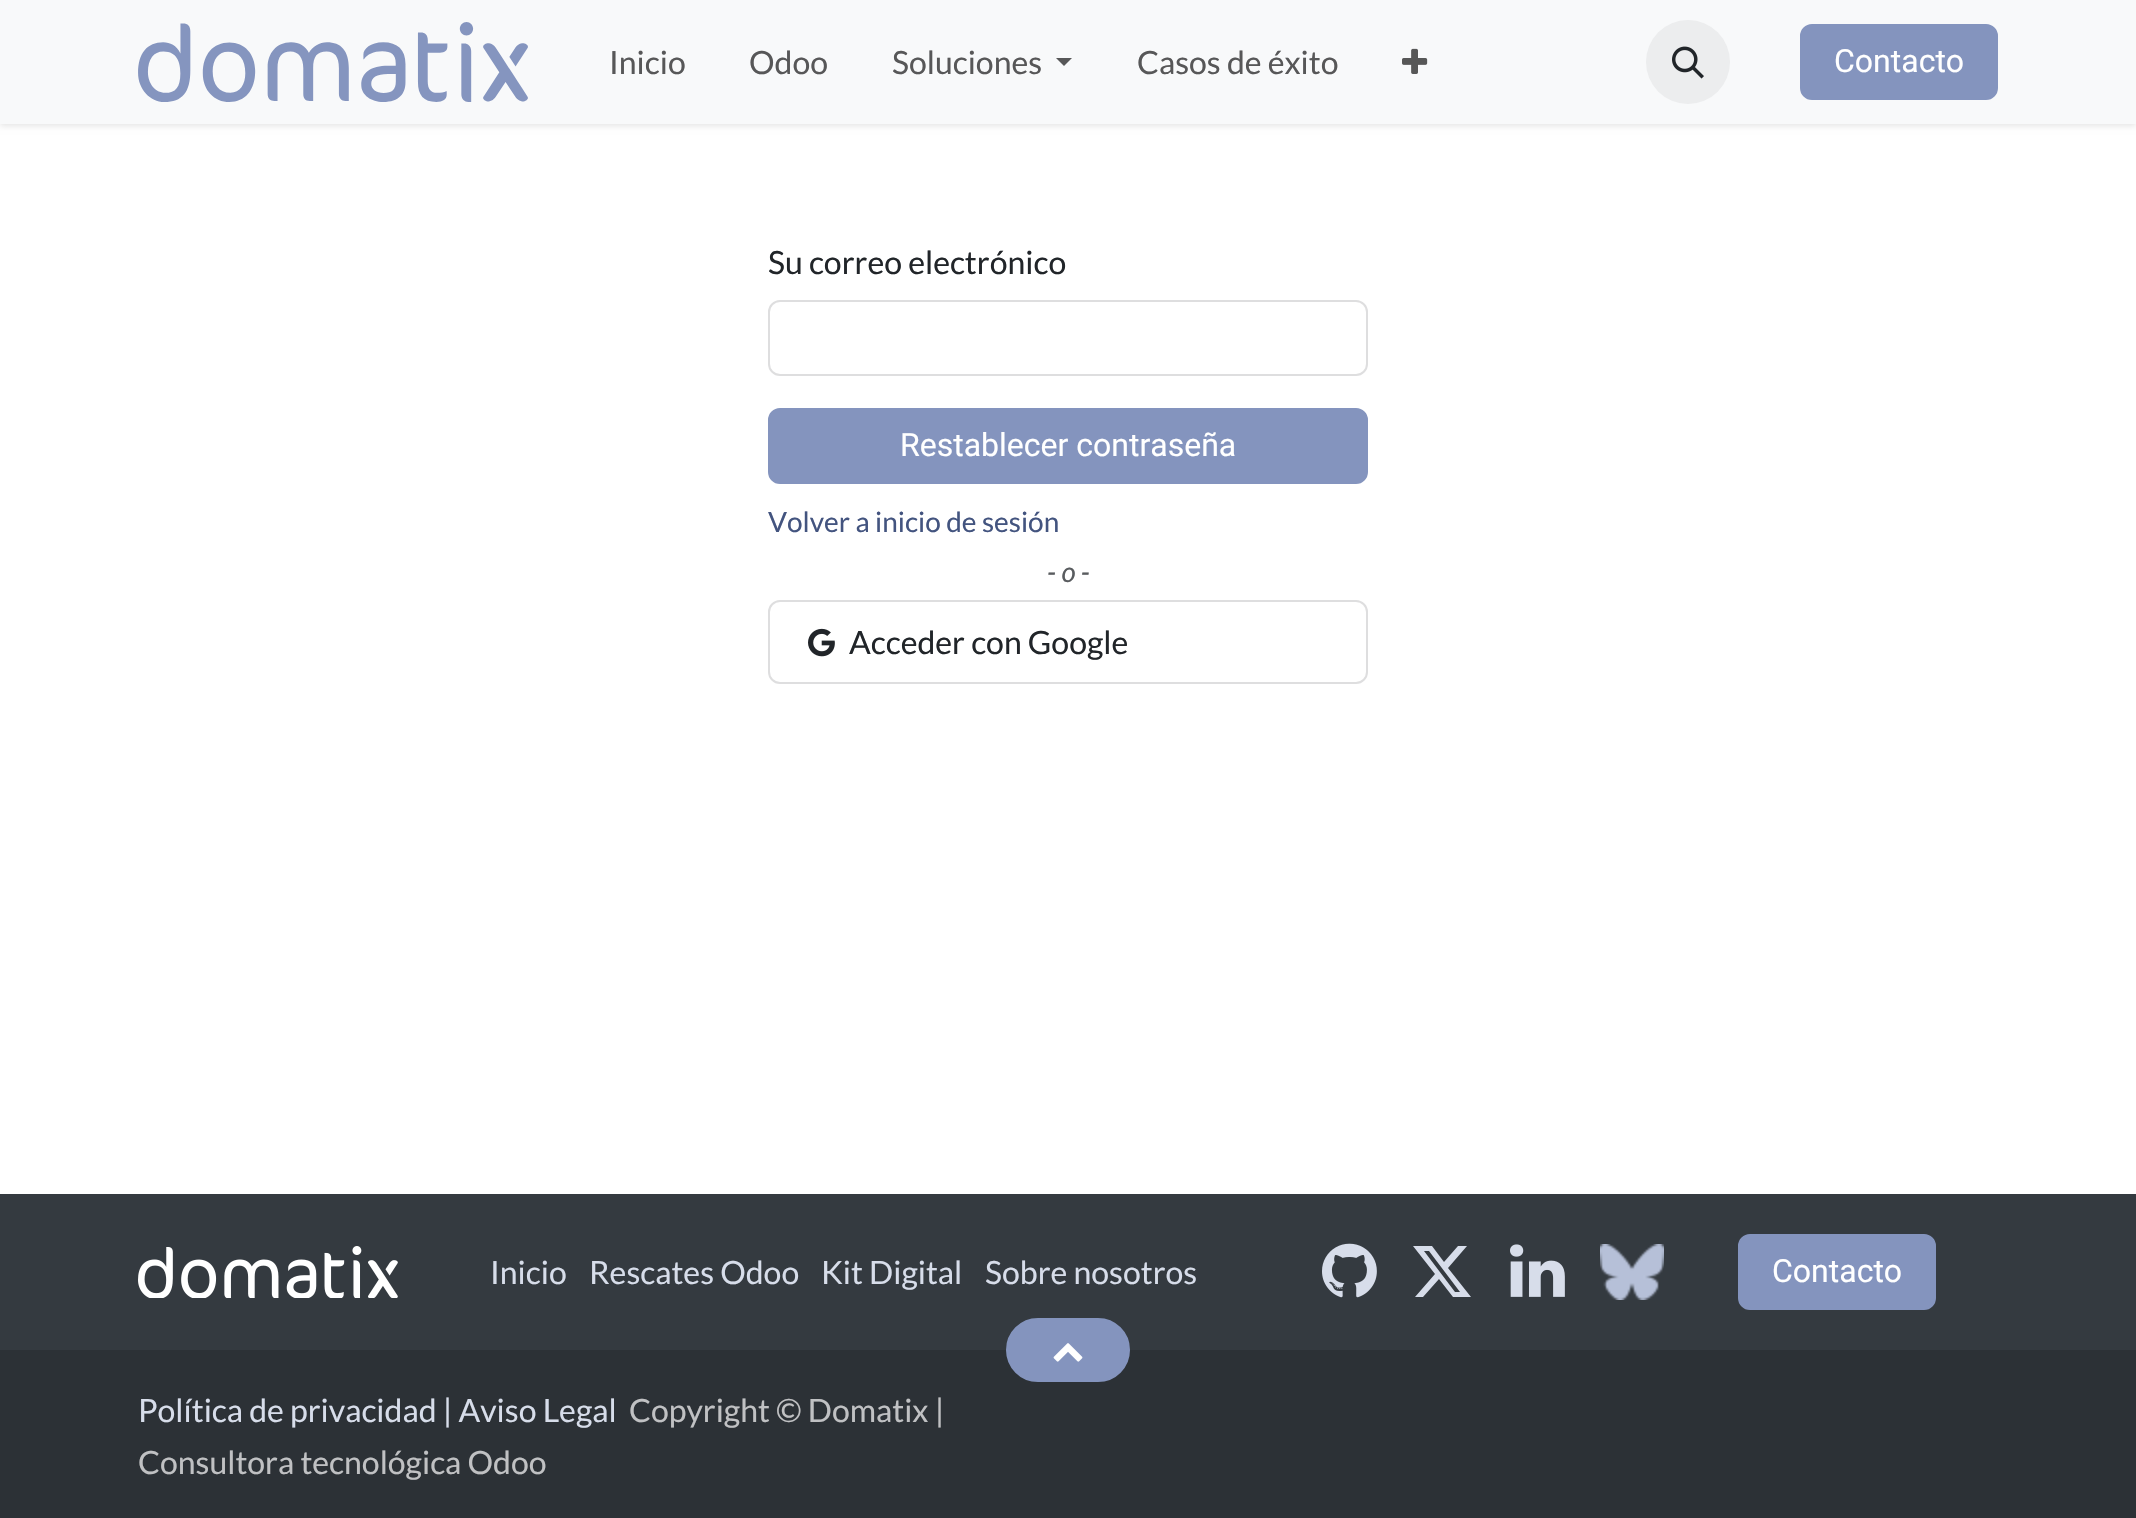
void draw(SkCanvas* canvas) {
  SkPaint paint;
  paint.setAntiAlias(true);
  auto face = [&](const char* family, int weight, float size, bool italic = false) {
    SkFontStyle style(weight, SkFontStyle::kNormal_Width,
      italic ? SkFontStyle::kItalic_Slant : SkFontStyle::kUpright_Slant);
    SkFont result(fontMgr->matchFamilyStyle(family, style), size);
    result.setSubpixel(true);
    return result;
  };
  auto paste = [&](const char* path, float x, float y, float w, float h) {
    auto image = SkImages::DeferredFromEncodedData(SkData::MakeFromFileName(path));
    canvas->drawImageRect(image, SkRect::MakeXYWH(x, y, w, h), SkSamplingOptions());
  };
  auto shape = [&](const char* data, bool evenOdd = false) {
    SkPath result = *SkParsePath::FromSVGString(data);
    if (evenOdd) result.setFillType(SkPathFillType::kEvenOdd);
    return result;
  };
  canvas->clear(0xffffffff);
  paint.setColor(0x1a000000);
  paint.setMaskFilter(SkMaskFilter::MakeBlur(kNormal_SkBlurStyle, 3));
  canvas->drawRect(SkRect::MakeXYWH(0, 2, 2136, 124), paint);
  paint.setMaskFilter(nullptr);
  paint.setColor(0xfff8f9fa);
  canvas->drawRect(SkRect::MakeXYWH(0, 0, 2136, 124), paint);
  paste("img/1.png", 138, 22, 390, 80);
  paint.setColor(0xff575758);
  canvas->drawPath(shape("M1056 58H1072L1064 66Z"), paint);
  paste("img/2.png", 1402, 48, 26, 26);
  paint.setColor(0xffecedee);
  canvas->drawCircle(1688, 62, 42, paint);
  paste("img/3.png", 1672, 46, 32, 33);
  paint.setColor(0xff8494be);
  canvas->drawRoundRect(SkRect::MakeXYWH(1801, 25, 196, 74), 11, 11, paint);
  paint.setStroke(true);
  paint.setStrokeWidth(2);
  canvas->drawRoundRect(SkRect::MakeXYWH(1801, 25, 196, 74), 11, 11, paint);
  paint.setColor(0xffdededf);
  canvas->drawRoundRect(SkRect::MakeXYWH(769, 301, 598, 74), 11, 11, paint);
  paint.setStroke(false);
  paint.setColor(0xff8494be);
  canvas->drawRoundRect(SkRect::MakeXYWH(769, 409, 598, 74), 11, 11, paint);
  paint.setStroke(true);
  canvas->drawRoundRect(SkRect::MakeXYWH(769, 409, 598, 74), 11, 11, paint);
  paint.setColor(0xffdededf);
  canvas->drawRoundRect(SkRect::MakeXYWH(769, 601, 598, 82), 11, 11, paint);
  paste("img/4.png", 808, 628, 27, 29);
  paint.setStroke(false);
  paint.setColor(0xff343a40);
  canvas->drawRect(SkRect::MakeXYWH(0, 1194, 2136, 156), paint);
  paste("img/5.png", 138, 1246, 260, 52);
  paste("img/6.png", 1322, 1243, 55, 55);
  paint.setColor(0xffd7ddea);
  canvas->drawPath(shape("M1458 1246H1467L1448 1268L1471 1297H1453L1439 1279L1423 1297H1415L1435 1274L1413 1246H1432L1444 1262ZM1455 1292H1460L1429 1251H1424Z"), paint);
  paste("img/7.png", 1510, 1244, 55, 53);
  paste("img/8.png", 1600, 1244, 64, 56);
  paint.setColor(0xff8494be);
  canvas->drawRoundRect(SkRect::MakeXYWH(1739, 1235, 196, 74), 11, 11, paint);
  paint.setStroke(true);
  canvas->drawRoundRect(SkRect::MakeXYWH(1739, 1235, 196, 74), 11, 11, paint);
  paint.setStroke(false);
  paint.setColor(0xff2c3136);
  canvas->drawRect(SkRect::MakeXYWH(0, 1350, 2136, 168), paint);
  paint.setColor(0xff8494be);
  canvas->drawRoundRect(SkRect::MakeXYWH(1007, 1319, 122, 62), 31, 31, paint);
  paint.setStroke(true);
  canvas->drawRoundRect(SkRect::MakeXYWH(1007, 1319, 122, 62), 31, 31, paint);
  paste("img/9.png", 1053, 1343, 30, 19);
  auto f0 = face("Lato", 400, 32);
  paint.setStroke(false);
  paint.setColor(0xff575758);
  {
    const struct { const char* s; float x, y; } items[] = {
      {"Inicio", 609, 74},
      {"Odoo", 749, 74},
      {"Soluciones", 892, 74},
      {"Casos de éxito", 1137, 74},
    };
    for (auto [s, x, y] : items) {
      canvas->drawString(s, x, y, f0, paint);
    }
  }
  auto f1 = face("Roboto", 400, 32);
  paint.setColor(0xffffffff);
  canvas->drawString("Contacto", 1834, 72, f1, paint);
  paint.setColor(0xff212529);
  canvas->drawString("Su correo electrónico", 768, 274, f0, paint);
  paint.setColor(0xffffffff);
  canvas->drawString("Restablecer contraseña", 900, 456, f1, paint);
  auto f2 = face("Lato", 400, 28);
  paint.setColor(0xff43547f);
  canvas->drawString("Volver a inicio de sesión", 768, 532, f2, paint);
  auto f3 = face("Lato", 400, 28, true);
  paint.setColor(0xff595c5f);
  canvas->drawString("- o -", 1047, 582, f3, paint);
  paint.setColor(0xff212529);
  canvas->drawString("Acceder con Google", 849, 654, f0, paint);
  paint.setColor(0xffd7ddea);
  {
    const struct { const char* s; float x, y; } items[] = {
      {"Inicio", 490, 1284},
      {"Rescates Odoo", 589, 1284},
      {"Kit Digital", 821, 1284},
      {"Sobre nosotros", 985, 1284},
    };
    for (auto [s, x, y] : items) {
      canvas->drawString(s, x, y, f0, paint);
    }
  }
  paint.setColor(0xffffffff);
  canvas->drawString("Contacto", 1772, 1282, f1, paint);
  paint.setColor(0xffd7ddea);
  canvas->drawString("Política de privacidad | Aviso Legal", 138, 1422, f0, paint);
  paint.setColor(0xffc0c1c3);
  canvas->drawString("Copyright © Domatix |", 629, 1422, f0, paint);
  canvas->drawString("Consultora tecnológica Odoo", 138, 1474, f0, paint);
}
